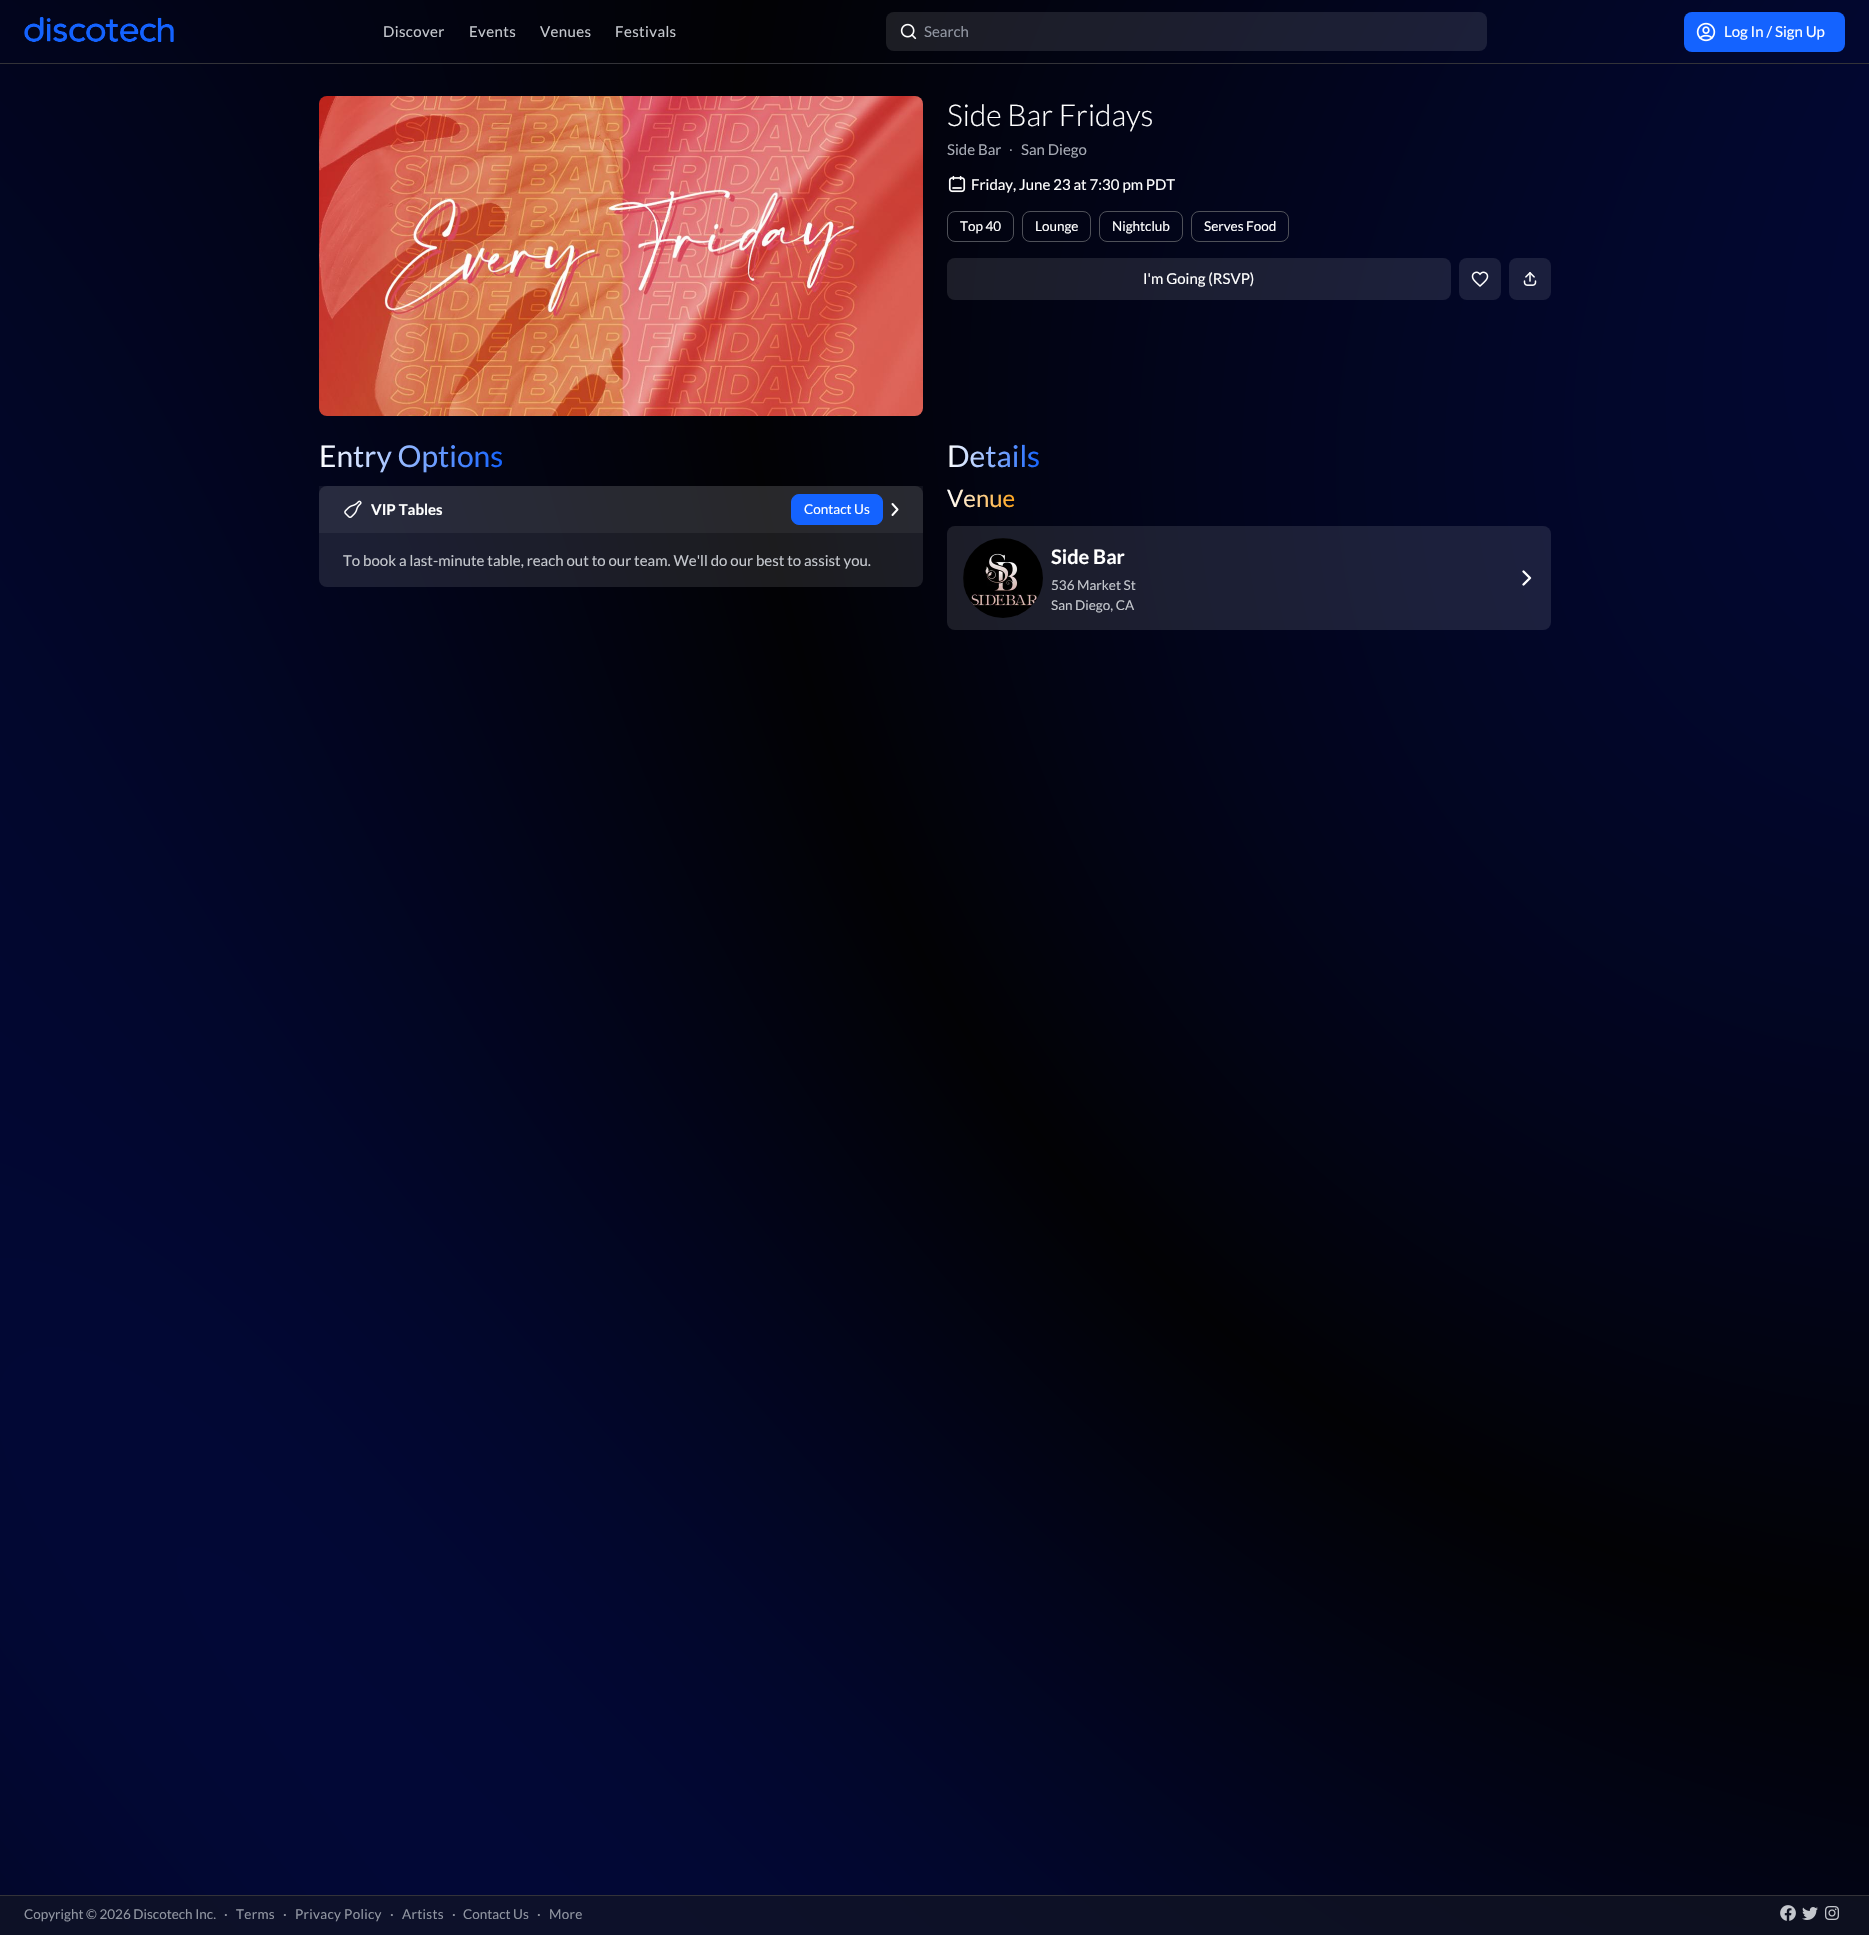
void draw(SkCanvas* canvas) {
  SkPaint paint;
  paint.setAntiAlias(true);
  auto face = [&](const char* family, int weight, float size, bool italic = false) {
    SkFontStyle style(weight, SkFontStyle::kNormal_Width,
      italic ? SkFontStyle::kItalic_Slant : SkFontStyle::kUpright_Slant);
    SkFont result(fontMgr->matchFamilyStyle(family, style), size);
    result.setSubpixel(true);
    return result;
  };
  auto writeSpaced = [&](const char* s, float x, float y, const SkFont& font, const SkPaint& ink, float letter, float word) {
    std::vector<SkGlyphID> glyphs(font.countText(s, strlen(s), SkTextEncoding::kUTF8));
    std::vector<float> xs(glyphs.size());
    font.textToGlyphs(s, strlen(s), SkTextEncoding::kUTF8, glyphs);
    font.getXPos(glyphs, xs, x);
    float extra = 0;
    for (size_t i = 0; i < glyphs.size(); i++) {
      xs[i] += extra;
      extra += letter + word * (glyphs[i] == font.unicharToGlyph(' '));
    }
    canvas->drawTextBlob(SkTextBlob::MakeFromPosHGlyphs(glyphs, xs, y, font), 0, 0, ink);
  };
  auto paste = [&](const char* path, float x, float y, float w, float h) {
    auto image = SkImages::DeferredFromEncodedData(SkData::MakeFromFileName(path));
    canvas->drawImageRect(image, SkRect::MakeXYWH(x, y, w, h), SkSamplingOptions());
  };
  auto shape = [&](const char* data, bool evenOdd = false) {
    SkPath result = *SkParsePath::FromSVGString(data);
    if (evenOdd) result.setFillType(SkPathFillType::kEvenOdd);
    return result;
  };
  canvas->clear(0xffffffff);
  paste("img/1.png", 0, 0, 1869, 1935);
  paint.setColor(0xff333338);
  canvas->drawRect(SkRect::MakeXYWH(0, 63, 1869, 1), paint);
  paste("img/2.png", 24, 17, 150, 25);
  paint.setColor(0x1affffff);
  canvas->drawRoundRect(SkRect::MakeXYWH(886, 12, 601, 39), 8, 8, paint);
  paste("img/3.png", 900, 23, 17, 17);
  paint.setColor(0xff1463ff);
  canvas->drawRoundRect(SkRect::MakeXYWH(1684, 12, 161, 40), 8, 8, paint);
  paste("img/4.png", 1696, 22, 20, 20);
  paste("img/5.png", 319, 96, 604, 320);
  paste("img/6.png", 948, 175, 18, 18);
  paint.setStroke(true);
  paint.setStrokeWidth(1);
  paint.setColor(0xff4f5159);
  canvas->drawRoundRect(SkRect::MakeXYWH(947.5f, 211.5f, 66, 30), 7.5f, 7.5f, paint);
  canvas->drawRoundRect(SkRect::MakeXYWH(1022.5f, 211.5f, 68, 30), 7.5f, 7.5f, paint);
  canvas->drawRoundRect(SkRect::MakeXYWH(1099.5f, 211.5f, 83, 30), 7.5f, 7.5f, paint);
  canvas->drawRoundRect(SkRect::MakeXYWH(1191.5f, 211.5f, 97, 30), 7.5f, 7.5f, paint);
  paint.setStroke(false);
  paint.setColor(0x1affffff);
  canvas->drawRoundRect(SkRect::MakeXYWH(947, 258, 504, 42), 8, 8, paint);
  paint.setColor(0xff1b1f3c);
  canvas->drawRoundRect(SkRect::MakeXYWH(1459, 258, 42, 42), 8, 8, paint);
  paste("img/7.png", 1471, 271, 18, 16);
  paint.setColor(0xff1b1f3d);
  canvas->drawRoundRect(SkRect::MakeXYWH(1509, 258, 42, 42), 8, 8, paint);
  paste("img/8.png", 1523, 272, 14, 14);
  paint.setColor(0x1affffff);
  canvas->drawRoundRect(SkRect::MakeXYWH(319, 486, 604, 101), 8, 8, paint);
  paint.setColor(0x0dffffff);
  canvas->drawRect(SkRect::MakeXYWH(319, 486, 604, 47), paint);
  paste("img/9.png", 344, 500, 18, 18);
  paint.setColor(0xff1463ff);
  canvas->drawRoundRect(SkRect::MakeXYWH(791.5f, 494.5f, 91, 30), 7.5f, 7.5f, paint);
  paint.setStroke(true);
  canvas->drawRoundRect(SkRect::MakeXYWH(791.5f, 494.5f, 91, 30), 7.5f, 7.5f, paint);
  paint.setStrokeWidth(2);
  paint.setStrokeCap(SkPaint::kRound_Cap);
  paint.setStrokeJoin(SkPaint::kRound_Join);
  paint.setColor(0xffffffff);
  canvas->drawPath(shape("M892.5 515L897.5 509.5L892.5 504"), paint);
  paint.setStroke(false);
  paint.setColor(0x1affffff);
  canvas->drawRoundRect(SkRect::MakeXYWH(947, 526, 604, 104), 8, 8, paint);
  paste("img/10.png", 963, 538, 80, 80);
  paint.setStroke(true);
  paint.setStrokeWidth(2.4f);
  paint.setColor(0xffffffff);
  canvas->drawPath(shape("M1523.5 584.5L1530 578L1523.5 571.5"), paint);
  paint.setStroke(false);
  paint.setColor(0xa8121623);
  canvas->drawRect(SkRect::MakeXYWH(0, 1896, 1869, 39), paint);
  paint.setColor(0xff333338);
  canvas->drawRect(SkRect::MakeXYWH(0, 1895, 1869, 1), paint);
  paste("img/11.png", 1780, 1905, 16, 16);
  paste("img/12.png", 1802, 1907, 16, 13);
  paste("img/13.png", 1825, 1906, 14, 14);
  auto f0 = face("Lato", 400, 15);
  paint.setColor(0xffc4c7cd);
  {
    const struct { const char* s; float x, y; } items[] = {
      {"Discover", 383, 37},
      {"Events", 469, 37},
      {"Venues", 540, 37},
      {"Festivals", 615, 37},
    };
    for (auto [s, x, y] : items) {
      writeSpaced(s, x, y, f0, paint, 0.4f, 0);
    }
  }
  paint.setColor(0xff9095a1);
  canvas->drawString("Search", 924, 37, f0, paint);
  paint.setColor(0xffffffff);
  canvas->drawString("Log In / Sign Up", 1724, 37, f0, paint);
  auto f1 = face("Lato", 300, 30);
  canvas->drawString("Side Bar Fridays", 947, 126, f1, paint);
  paint.setColor(0xffa6aab4);
  canvas->drawString("Side Bar", 947, 155, f0, paint);
  auto f2 = face("Liberation Serif", 400, 15);
  canvas->drawString("∙", 1009, 155, f2, paint);
  canvas->drawString("San Diego", 1021, 155, f0, paint);
  paint.setColor(0xffffffff);
  canvas->drawString("Friday, June 23 at 7:30 pm PDT", 971, 190, f0, paint);
  auto f3 = face("Lato", 400, 13.5f);
  {
    const struct { const char* s; float x, y; } items[] = {
      {"Top 40", 960, 231},
      {"Lounge", 1035, 231},
      {"Nightclub", 1112, 231},
      {"Serves Food", 1204, 231},
    };
    for (auto [s, x, y] : items) {
      canvas->drawString(s, x, y, f3, paint);
    }
  }
  canvas->drawString("I'm Going (RSVP)", 1143, 284, f0, paint);
  auto f4 = face("Lato", 400, 30);
  {
    const SkColor colors[] = {0xffffffff, 0xff1463ff};
    const float stops[] = {0, 1};
    const SkPoint ends[] = {{319, 455}, {503, 455}};
    paint.setShader(SkGradientShader::MakeLinear(ends, colors, stops, 2, SkTileMode::kClamp));
    paint.setAlpha(255);
  }
  canvas->drawString("Entry Options", 319, 467, f4, paint);
  auto f5 = face("Lato", 700, 15);
  paint.setShader(nullptr);
  paint.setColor(0xffffffff);
  canvas->drawString("VIP Tables", 371, 515, f5, paint);
  canvas->drawString("Contact Us", 804, 514, f3, paint);
  paint.setColor(0xffc4c7cd);
  canvas->drawString("To book a last-minute table, reach out to our team. We'll do our best to assist you.", 343, 566, f0, paint);
  {
    const SkColor colors[] = {0xffffffff, 0xff1463ff};
    const float stops[] = {0, 1};
    const SkPoint ends[] = {{947, 455}, {1040, 455}};
    paint.setShader(SkGradientShader::MakeLinear(ends, colors, stops, 2, SkTileMode::kClamp));
    paint.setAlpha(255);
  }
  canvas->drawString("Details", 947, 467, f4, paint);
  auto f6 = face("Lato", 400, 24);
  {
    const SkColor colors[] = {0xffffffff, 0xffffa41a};
    const float stops[] = {0, 1};
    const SkPoint ends[] = {{947, 498}, {1015, 498}};
    paint.setShader(SkGradientShader::MakeLinear(ends, colors, stops, 2, SkTileMode::kClamp));
    paint.setAlpha(255);
  }
  canvas->drawString("Venue", 947, 507, f6, paint);
  auto f7 = face("Lato", 700, 20);
  paint.setShader(nullptr);
  paint.setColor(0xffffffff);
  canvas->drawString("Side Bar", 1051, 564, f7, paint);
  paint.setColor(0xffc4c7cd);
  canvas->drawString("536 Market St", 1051, 590, f3, paint);
  canvas->drawString("San Diego, CA", 1051, 610, f3, paint);
  paint.setColor(0xff9095a1);
  canvas->drawString("Copyright © 2026 Discotech Inc.", 24, 1919, f3, paint);
  canvas->drawString("·", 224, 1919, f3, paint);
  writeSpaced("Terms", 236, 1919, f3, paint, 0.3f, 0);
  canvas->drawString("·", 283, 1919, f3, paint);
  writeSpaced("Privacy Policy", 295, 1919, f3, paint, 0.3f, 0);
  canvas->drawString("·", 390, 1919, f3, paint);
  writeSpaced("Artists", 402, 1919, f3, paint, 0.3f, 0);
  {
    const struct { const char* s; float x, y; } items[] = {
      {"·", 452, 1919},
      {"Contact Us", 463, 1919},
      {"·", 537, 1919},
    };
    for (auto [s, x, y] : items) {
      canvas->drawString(s, x, y, f3, paint);
    }
  }
  writeSpaced("More", 549, 1919, f3, paint, 0.3f, 0);
}
